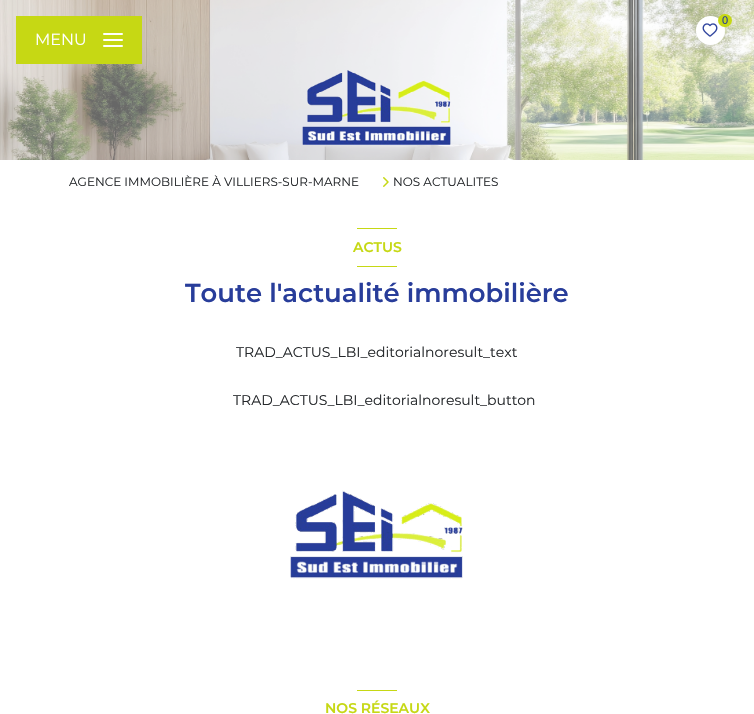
void draw(SkCanvas* canvas) {
  SkPaint paint;
  paint.setAntiAlias(true);
  auto face = [&](const char* family, int weight, float size, bool italic = false) {
    SkFontStyle style(weight, SkFontStyle::kNormal_Width,
      italic ? SkFontStyle::kItalic_Slant : SkFontStyle::kUpright_Slant);
    SkFont result(fontMgr->matchFamilyStyle(family, style), size);
    result.setSubpixel(true);
    return result;
  };
  auto paste = [&](const char* path, float x, float y, float w, float h) {
    auto image = SkImages::DeferredFromEncodedData(SkData::MakeFromFileName(path));
    canvas->drawImageRect(image, SkRect::MakeXYWH(x, y, w, h), SkSamplingOptions());
  };
  canvas->clear(0xffffffff);
  paste("img/1.png", 0, 0, 754, 160);
  paint.setColor(0xffffffff);
  canvas->drawCircle(710.5f, 30.5f, 14.5f, paint);
  paste("img/2.png", 702, 23, 16, 14);
  paint.setColor(0xffc6d814);
  canvas->drawRoundRect(SkRect::MakeXYWH(718, 14, 14, 13), 6.5f, 6.5f, paint);
  canvas->drawRect(SkRect::MakeXYWH(16, 16, 126, 48), paint);
  paint.setColor(0xffffffff);
  canvas->drawRoundRect(SkRect::MakeXYWH(103, 39, 20, 2), 1, 1, paint);
  canvas->drawRoundRect(SkRect::MakeXYWH(103, 33, 20, 2), 1, 1, paint);
  canvas->drawRoundRect(SkRect::MakeXYWH(103, 45, 20, 2), 1, 1, paint);
  paste("img/3.png", 302, 70, 149, 75);
  paste("img/4.png", 383, 177, 6, 10);
  paint.setColor(0xffc6d814);
  canvas->drawRect(SkRect::MakeXYWH(357, 228, 40, 1), paint);
  canvas->drawRect(SkRect::MakeXYWH(357, 266, 40, 1), paint);
  paste("img/5.png", 290, 490, 173, 89);
  canvas->drawRect(SkRect::MakeXYWH(357, 690, 40, 1), paint);
  auto f0 = face("Liberation Sans", 400, 11);
  paint.setColor(0xff283d9a);
  canvas->drawString("0", 722, 24, f0, paint);
  auto f1 = face("Montserrat", 100, 16);
  paint.setColor(0xffffffff);
  canvas->drawString("MENU", 35, 45, f1, paint);
  auto f2 = face("Montserrat", 100, 12);
  paint.setColor(0xff25282b);
  canvas->drawString("AGENCE IMMOBILIÈRE À VILLIERS-SUR-MARNE", 69, 186, f2, paint);
  canvas->drawString("NOS ACTUALITES", 393, 186, f2, paint);
  auto f3 = face("Montserrat", 600, 14);
  paint.setColor(0xffc6d814);
  canvas->drawString("ACTUS", 353, 252, f3, paint);
  auto f4 = face("Montserrat", 600, 25.9f);
  paint.setColor(0xff283d9a);
  canvas->drawString("Toute l'actualité immobilière", 185, 302, f4, paint);
  auto f5 = face("Montserrat", 100, 14);
  paint.setColor(0xff25282b);
  canvas->drawString("TRAD_ACTUS_LBI_editorialnoresult_text", 236, 357, f5, paint);
  canvas->drawString("TRAD_ACTUS_LBI_editorialnoresult_button", 233, 405, f5, paint);
  paint.setColor(0xffc6d814);
  canvas->drawString("NOS RÉSEAUX", 325, 713, f3, paint);
}
